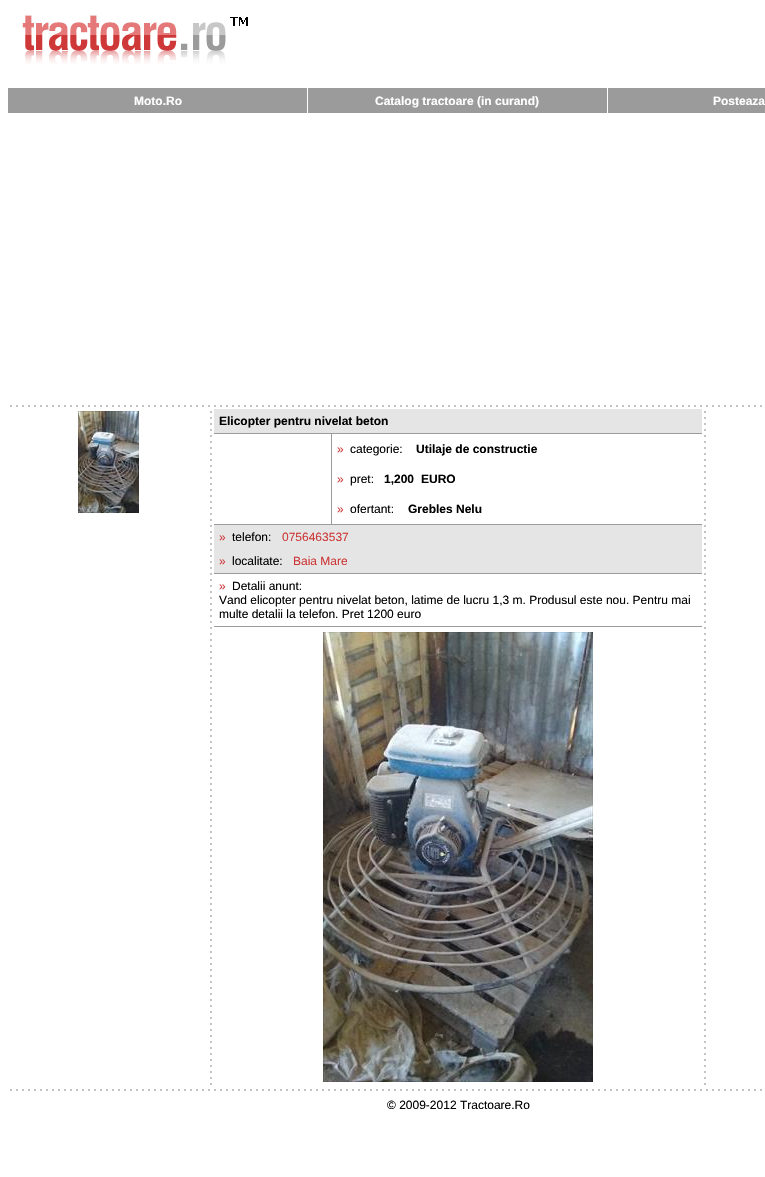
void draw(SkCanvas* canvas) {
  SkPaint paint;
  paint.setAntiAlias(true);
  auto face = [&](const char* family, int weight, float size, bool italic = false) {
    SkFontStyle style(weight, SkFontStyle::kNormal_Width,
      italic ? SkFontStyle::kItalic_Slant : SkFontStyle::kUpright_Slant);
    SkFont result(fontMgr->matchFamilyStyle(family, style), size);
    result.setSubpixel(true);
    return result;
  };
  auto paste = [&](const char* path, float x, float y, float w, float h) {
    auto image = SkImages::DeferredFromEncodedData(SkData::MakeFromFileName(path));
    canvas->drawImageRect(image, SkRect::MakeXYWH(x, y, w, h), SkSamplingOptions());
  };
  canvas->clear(0xffffffff);
  paste("img/1.png", 22, 15, 226, 49);
  {
    const struct { float x, y, w, h; SkColor color; } items[] = {
      {8, 88, 757, 25, 0xff9b9b9b},
      {307, 88, 1, 25, 0xffffffff},
      {607, 88, 1, 25, 0xffffffff},
    };
    for (auto [x, y, w, h, color] : items) {
      paint.setColor(color);
      canvas->drawRect(SkRect::MakeXYWH(x, y, w, h), paint);
    }
  }
  paste("img/2.png", 10, 405, 752, 2);
  paste("img/3.png", 78, 411, 61, 102);
  paste("img/4.png", 210, 411, 2, 674);
  {
    const struct { float x, y, w, h; SkColor color; } items[] = {
      {214, 409, 488, 24, 0xffe5e5e5},
      {214, 433, 488, 1, 0xff9b9b9b},
      {214, 524, 488, 1, 0xff9b9b9b},
      {331, 434, 1, 90, 0xff9b9b9b},
      {214, 525, 488, 48, 0xffe5e5e5},
      {214, 573, 488, 1, 0xff9b9b9b},
      {214, 626, 488, 1, 0xff9b9b9b},
    };
    for (auto [x, y, w, h, color] : items) {
      paint.setColor(color);
      canvas->drawRect(SkRect::MakeXYWH(x, y, w, h), paint);
    }
  }
  paste("img/5.png", 323, 632, 270, 450);
  paste("img/4.png", 704, 411, 2, 674);
  paste("img/2.png", 10, 1089, 752, 2);
  auto f0 = face("Liberation Sans", 700, 12);
  paint.setColor(0xffffffff);
  {
    const struct { const char* s; float x, y; } items[] = {
      {"Moto.Ro", 134, 105},
      {"Catalog tractoare (in curand)", 375, 105},
      {"Posteaza", 713, 105},
    };
    for (auto [s, x, y] : items) {
      canvas->drawString(s, x, y, f0, paint);
    }
  }
  paint.setColor(0xff000000);
  canvas->drawString("Elicopter pentru nivelat beton", 219, 425, f0, paint);
  auto f1 = face("Liberation Sans", 400, 12);
  paint.setColor(0xffcd3737);
  canvas->drawString("»", 337, 453, f1, paint);
  paint.setColor(0xff000000);
  canvas->drawString("categorie:", 350, 453, f1, paint);
  canvas->drawString("Utilaje de constructie", 416, 453, f0, paint);
  paint.setColor(0xffcd3737);
  canvas->drawString("»", 337, 483, f1, paint);
  paint.setColor(0xff000000);
  canvas->drawString("pret:", 350, 483, f1, paint);
  canvas->drawString("1,200", 384, 483, f0, paint);
  canvas->drawString("EURO", 421, 483, f0, paint);
  paint.setColor(0xffcd3737);
  canvas->drawString("»", 337, 513, f1, paint);
  paint.setColor(0xff000000);
  canvas->drawString("ofertant:", 350, 513, f1, paint);
  canvas->drawString("Grebles Nelu", 408, 513, f0, paint);
  paint.setColor(0xffcd3737);
  canvas->drawString("»", 219, 541, f1, paint);
  paint.setColor(0xff000000);
  canvas->drawString("telefon:", 232, 541, f1, paint);
  paint.setColor(0xffcd3737);
  canvas->drawString("0756463537", 282, 541, f1, paint);
  canvas->drawString("»", 219, 565, f1, paint);
  paint.setColor(0xff000000);
  canvas->drawString("localitate:", 232, 565, f1, paint);
  paint.setColor(0xffcd3737);
  canvas->drawString("Baia Mare", 293, 565, f1, paint);
  canvas->drawString("»", 219, 590, f1, paint);
  paint.setColor(0xff000000);
  {
    const struct { const char* s; float x, y; } items[] = {
      {"Detalii anunt:", 232, 590},
      {"Vand elicopter pentru nivelat beton, latime de lucru 1,3 m. Produsul este nou. Pentru mai", 219, 604},
      {"multe detalii la telefon. Pret 1200 euro", 219, 618},
      {"© 2009-2012 Tractoare.Ro", 387, 1109},
    };
    for (auto [s, x, y] : items) {
      canvas->drawString(s, x, y, f1, paint);
    }
  }
}
